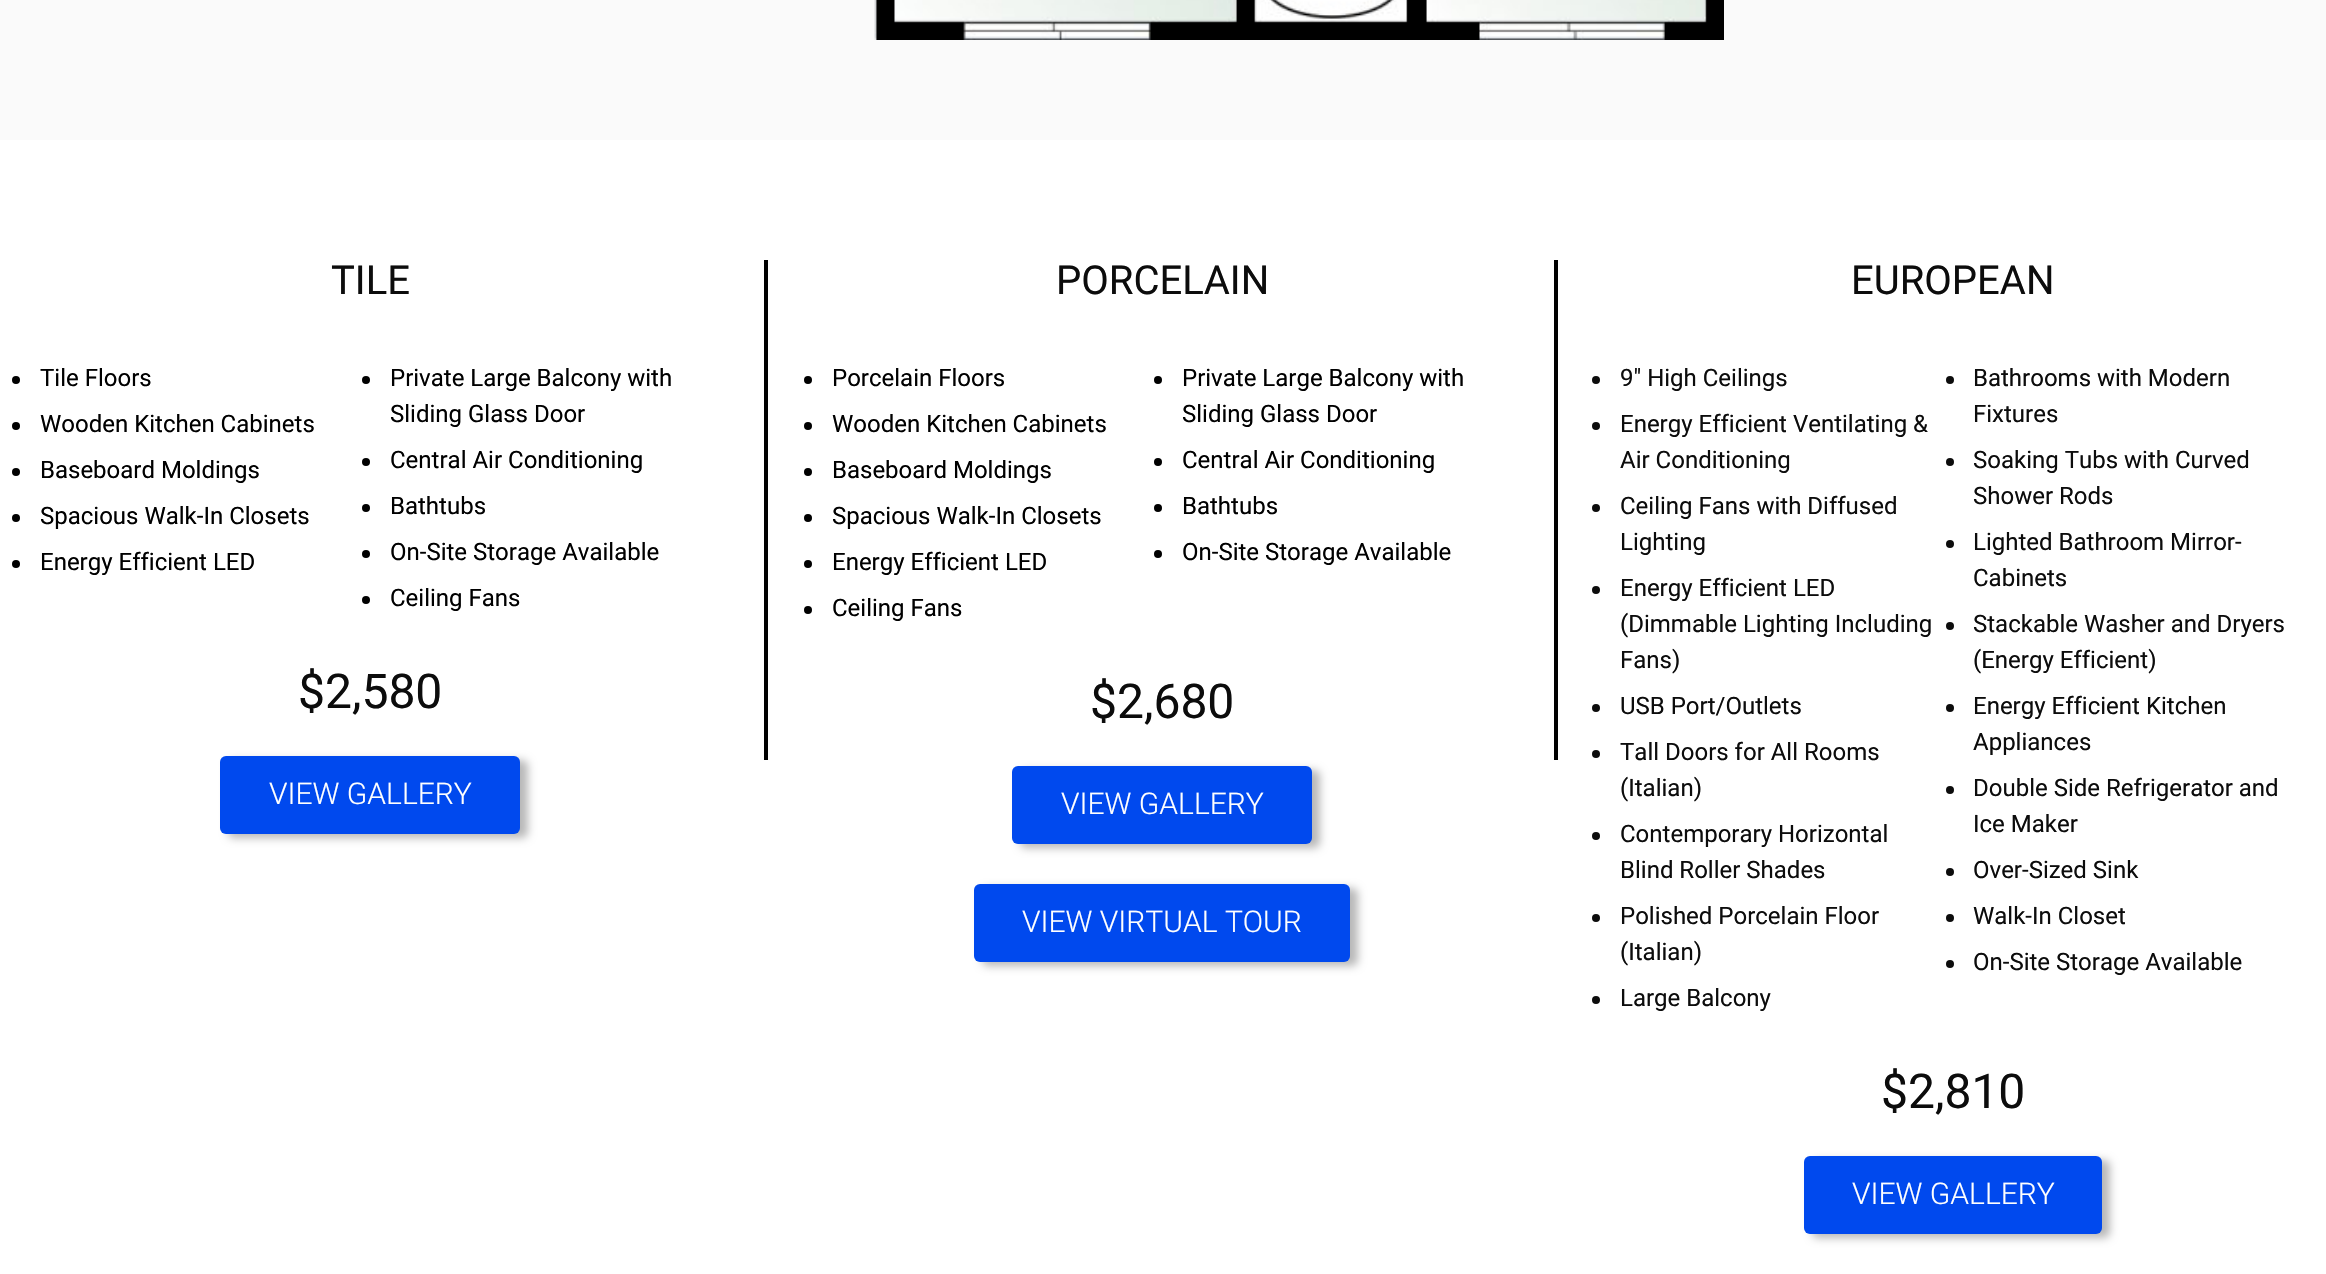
void draw(SkCanvas* canvas) {
  SkPaint paint;
  paint.setAntiAlias(true);
  auto face = [&](const char* family, int weight, float size, bool italic = false) {
    SkFontStyle style(weight, SkFontStyle::kNormal_Width,
      italic ? SkFontStyle::kItalic_Slant : SkFontStyle::kUpright_Slant);
    SkFont result(fontMgr->matchFamilyStyle(family, style), size);
    result.setSubpixel(true);
    return result;
  };
  auto paste = [&](const char* path, float x, float y, float w, float h) {
    auto image = SkImages::DeferredFromEncodedData(SkData::MakeFromFileName(path));
    canvas->drawImageRect(image, SkRect::MakeXYWH(x, y, w, h), SkSamplingOptions());
  };
  canvas->clear(0xffffffff);
  paint.setColor(0xfffafafa);
  canvas->drawRect(SkRect::MakeXYWH(0, 0, 2326, 140), paint);
  paste("img/1.png", 874, 0, 850, 40);
  paint.setColor(0xff000000);
  canvas->drawCircle(16, 380, 4, paint);
  canvas->drawCircle(16, 426, 4, paint);
  canvas->drawCircle(16, 472, 4, paint);
  canvas->drawCircle(16, 518, 4, paint);
  canvas->drawCircle(16, 564, 4, paint);
  canvas->drawCircle(366, 380, 4, paint);
  canvas->drawCircle(366, 462, 4, paint);
  canvas->drawCircle(366, 508, 4, paint);
  canvas->drawCircle(366, 554, 4, paint);
  canvas->drawCircle(366, 600, 4, paint);
  paint.setColor(0x47000000);
  paint.setMaskFilter(SkMaskFilter::MakeBlur(kNormal_SkBlurStyle, 4));
  canvas->drawRoundRect(SkRect::MakeXYWH(228, 760, 300, 78), 6, 6, paint);
  paint.setMaskFilter(nullptr);
  paint.setColor(0xff0049ee);
  canvas->drawRoundRect(SkRect::MakeXYWH(220, 756, 300, 78), 6, 6, paint);
  paint.setColor(0xff000000);
  canvas->drawRect(SkRect::MakeXYWH(764, 260, 4, 500), paint);
  canvas->drawCircle(808, 380, 4, paint);
  canvas->drawCircle(808, 426, 4, paint);
  canvas->drawCircle(808, 472, 4, paint);
  canvas->drawCircle(808, 518, 4, paint);
  canvas->drawCircle(808, 564, 4, paint);
  canvas->drawCircle(808, 610, 4, paint);
  canvas->drawCircle(1158, 380, 4, paint);
  canvas->drawCircle(1158, 462, 4, paint);
  canvas->drawCircle(1158, 508, 4, paint);
  canvas->drawCircle(1158, 554, 4, paint);
  paint.setColor(0x47000000);
  paint.setMaskFilter(SkMaskFilter::MakeBlur(kNormal_SkBlurStyle, 4));
  canvas->drawRoundRect(SkRect::MakeXYWH(1020, 770, 300, 78), 6, 6, paint);
  paint.setMaskFilter(nullptr);
  paint.setColor(0xff0049ee);
  canvas->drawRoundRect(SkRect::MakeXYWH(1012, 766, 300, 78), 6, 6, paint);
  paint.setColor(0x47000000);
  paint.setMaskFilter(SkMaskFilter::MakeBlur(kNormal_SkBlurStyle, 4));
  canvas->drawRoundRect(SkRect::MakeXYWH(982, 888, 376, 78), 6, 6, paint);
  paint.setMaskFilter(nullptr);
  paint.setColor(0xff0049ee);
  canvas->drawRoundRect(SkRect::MakeXYWH(974, 884, 376, 78), 6, 6, paint);
  paint.setColor(0xff000000);
  canvas->drawRect(SkRect::MakeXYWH(1554, 260, 4, 500), paint);
  paint.setColor(0xff0c0c0c);
  canvas->drawCircle(1596, 380, 4, paint);
  canvas->drawCircle(1596, 426, 4, paint);
  canvas->drawCircle(1596, 508, 4, paint);
  canvas->drawCircle(1596, 590, 4, paint);
  canvas->drawCircle(1596, 708, 4, paint);
  canvas->drawCircle(1596, 754, 4, paint);
  canvas->drawCircle(1596, 836, 4, paint);
  canvas->drawCircle(1596, 918, 4, paint);
  canvas->drawCircle(1596, 1000, 4, paint);
  canvas->drawCircle(1950, 380, 4, paint);
  canvas->drawCircle(1950, 462, 4, paint);
  canvas->drawCircle(1950, 544, 4, paint);
  canvas->drawCircle(1950, 626, 4, paint);
  canvas->drawCircle(1950, 708, 4, paint);
  canvas->drawCircle(1950, 790, 4, paint);
  canvas->drawCircle(1950, 872, 4, paint);
  canvas->drawCircle(1950, 918, 4, paint);
  canvas->drawCircle(1950, 964, 4, paint);
  paint.setColor(0x47000000);
  paint.setMaskFilter(SkMaskFilter::MakeBlur(kNormal_SkBlurStyle, 4));
  canvas->drawRoundRect(SkRect::MakeXYWH(1812, 1160, 298, 78), 6, 6, paint);
  paint.setMaskFilter(nullptr);
  paint.setColor(0xff0049ee);
  canvas->drawRoundRect(SkRect::MakeXYWH(1804, 1156, 298, 78), 6, 6, paint);
  auto f0 = face("Roboto", 400, 40);
  paint.setColor(0xff0c0c0c);
  canvas->drawString("TILE", 331, 294, f0, paint);
  auto f1 = face("Roboto", 400, 24);
  paint.setColor(0xff000000);
  {
    const struct { const char* s; float x, y; } items[] = {
      {"Tile Floors", 40, 386},
      {"Wooden Kitchen Cabinets", 40, 432},
      {"Baseboard Moldings", 40, 478},
      {"Spacious Walk-In Closets", 40, 524},
      {"Energy Efficient LED", 40, 570},
      {"Private Large Balcony with", 390, 386},
      {"Sliding Glass Door", 390, 422},
      {"Central Air Conditioning", 390, 468},
      {"Bathtubs", 390, 514},
      {"On-Site Storage Available", 390, 560},
      {"Ceiling Fans", 390, 606},
    };
    for (auto [s, x, y] : items) {
      canvas->drawString(s, x, y, f1, paint);
    }
  }
  auto f2 = face("Roboto", 400, 48);
  paint.setColor(0xff0c0c0c);
  canvas->drawString("$2,580", 298, 708, f2, paint);
  auto f3 = face("Roboto", 300, 30);
  paint.setColor(0xffffffff);
  canvas->drawString("VIEW GALLERY", 269, 804, f3, paint);
  paint.setColor(0xff0c0c0c);
  canvas->drawString("PORCELAIN", 1056, 294, f0, paint);
  paint.setColor(0xff000000);
  {
    const struct { const char* s; float x, y; } items[] = {
      {"Porcelain Floors", 832, 386},
      {"Wooden Kitchen Cabinets", 832, 432},
      {"Baseboard Moldings", 832, 478},
      {"Spacious Walk-In Closets", 832, 524},
      {"Energy Efficient LED", 832, 570},
      {"Ceiling Fans", 832, 616},
      {"Private Large Balcony with", 1182, 386},
      {"Sliding Glass Door", 1182, 422},
      {"Central Air Conditioning", 1182, 468},
      {"Bathtubs", 1182, 514},
      {"On-Site Storage Available", 1182, 560},
    };
    for (auto [s, x, y] : items) {
      canvas->drawString(s, x, y, f1, paint);
    }
  }
  paint.setColor(0xff0c0c0c);
  canvas->drawString("$2,680", 1090, 718, f2, paint);
  paint.setColor(0xffffffff);
  canvas->drawString("VIEW GALLERY", 1061, 814, f3, paint);
  canvas->drawString("VIEW VIRTUAL TOUR", 1022, 932, f3, paint);
  paint.setColor(0xff0c0c0c);
  canvas->drawString("EUROPEAN", 1851, 294, f0, paint);
  {
    const struct { const char* s; float x, y; } items[] = {
      {"9″ High Ceilings", 1620, 386},
      {"Energy Efficient Ventilating &", 1620, 432},
      {"Air Conditioning", 1620, 468},
      {"Ceiling Fans with Diffused", 1620, 514},
      {"Lighting", 1620, 550},
      {"Energy Efficient LED", 1620, 596},
      {"(Dimmable Lighting Including", 1620, 632},
      {"Fans)", 1620, 668},
      {"USB Port/Outlets", 1620, 714},
      {"Tall Doors for All Rooms", 1620, 760},
      {"(Italian)", 1620, 796},
      {"Contemporary Horizontal", 1620, 842},
      {"Blind Roller Shades", 1620, 878},
      {"Polished Porcelain Floor", 1620, 924},
      {"(Italian)", 1620, 960},
      {"Large Balcony", 1620, 1006},
      {"Bathrooms with Modern", 1973, 386},
      {"Fixtures", 1973, 422},
      {"Soaking Tubs with Curved", 1973, 468},
      {"Shower Rods", 1973, 504},
      {"Lighted Bathroom Mirror-", 1973, 550},
      {"Cabinets", 1973, 586},
      {"Stackable Washer and Dryers", 1973, 632},
      {"(Energy Efficient)", 1973, 668},
      {"Energy Efficient Kitchen", 1973, 714},
      {"Appliances", 1973, 750},
      {"Double Side Refrigerator and", 1973, 796},
      {"Ice Maker", 1973, 832},
      {"Over-Sized Sink", 1973, 878},
      {"Walk-In Closet", 1973, 924},
      {"On-Site Storage Available", 1973, 970},
    };
    for (auto [s, x, y] : items) {
      canvas->drawString(s, x, y, f1, paint);
    }
  }
  canvas->drawString("$2,810", 1881, 1108, f2, paint);
  paint.setColor(0xffffffff);
  canvas->drawString("VIEW GALLERY", 1852, 1204, f3, paint);
}
